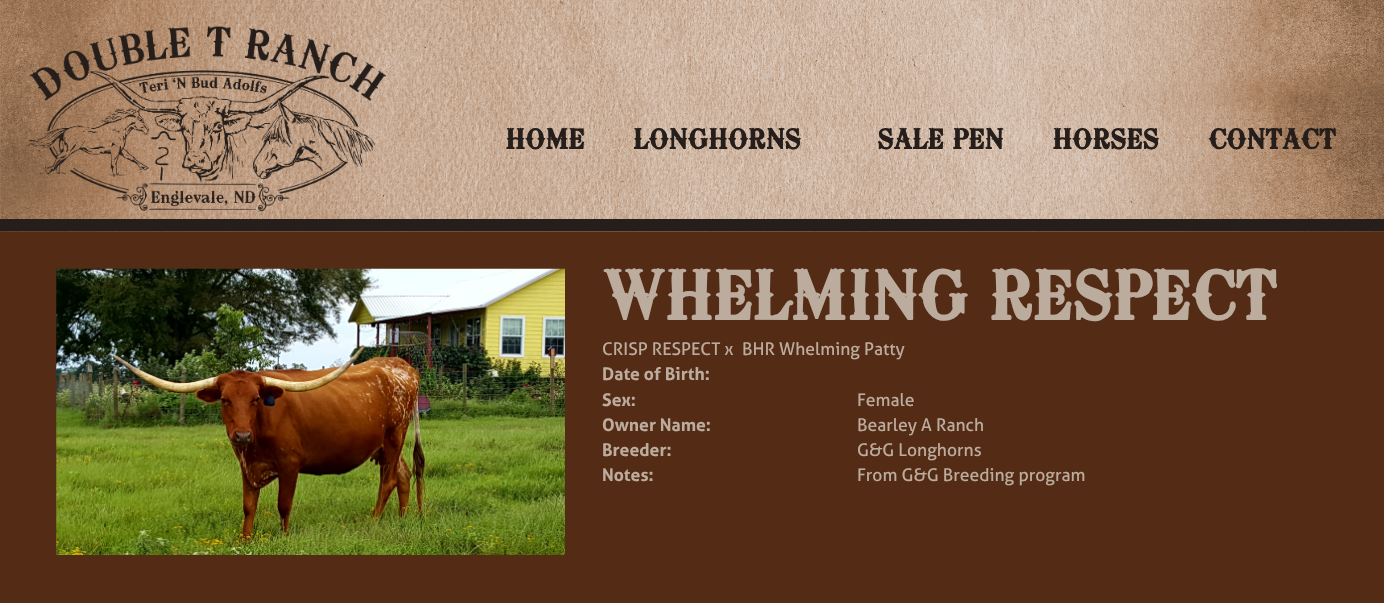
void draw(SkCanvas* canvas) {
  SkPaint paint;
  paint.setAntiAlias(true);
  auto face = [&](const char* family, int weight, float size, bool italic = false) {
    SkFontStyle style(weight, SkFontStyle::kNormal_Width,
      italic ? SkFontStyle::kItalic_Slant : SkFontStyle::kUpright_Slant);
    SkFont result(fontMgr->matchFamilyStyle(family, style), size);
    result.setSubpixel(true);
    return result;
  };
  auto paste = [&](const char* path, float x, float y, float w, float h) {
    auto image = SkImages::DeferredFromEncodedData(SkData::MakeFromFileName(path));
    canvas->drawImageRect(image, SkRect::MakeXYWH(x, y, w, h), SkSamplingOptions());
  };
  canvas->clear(0xff542c16);
  paste("img/1.png", 0, 0, 1384, 232);
  paint.setColor(0xff251e1a);
  canvas->drawRect(SkRect::MakeXYWH(0, 219, 1384, 12), paint);
  paste("img/2.png", 26, 26, 361, 186);
  paste("img/3.png", 56, 268, 509, 287);
  auto f0 = face("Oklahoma", 700, 25);
  {
    const struct { const char* s; float x, y; } items[] = {
      {"HOME", 505, 149},
      {"LONGHORNS", 633, 149},
      {"SALE PEN", 877, 149},
      {"HORSES", 1052, 149},
      {"CONTACT", 1208, 149},
    };
    for (auto [s, x, y] : items) {
      canvas->drawString(s, x, y, f0, paint);
    }
  }
  auto f1 = face("Oklahoma", 700, 61.25f);
  paint.setColor(0xffbbac9e);
  canvas->drawString("WHELMING RESPECT", 602, 320, f1, paint);
  auto f2 = face("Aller", 400, 17.5f);
  canvas->drawString("CRISP RESPECT x", 602, 355, f2, paint);
  canvas->drawString("BHR Whelming Patty", 742, 355, f2, paint);
  auto f3 = face("Aller", 700, 17.5f);
  canvas->drawString("Date of Birth:", 602, 380, f3, paint);
  canvas->drawString("Sex:", 602, 406, f3, paint);
  canvas->drawString("Female", 857, 406, f2, paint);
  canvas->drawString("Owner Name:", 602, 431, f3, paint);
  canvas->drawString("Bearley A Ranch", 857, 431, f2, paint);
  canvas->drawString("Breeder:", 602, 456, f3, paint);
  canvas->drawString("G&G Longhorns", 857, 456, f2, paint);
  canvas->drawString("Notes:", 602, 481, f3, paint);
  canvas->drawString("From G&G Breeding program", 857, 481, f2, paint);
}
